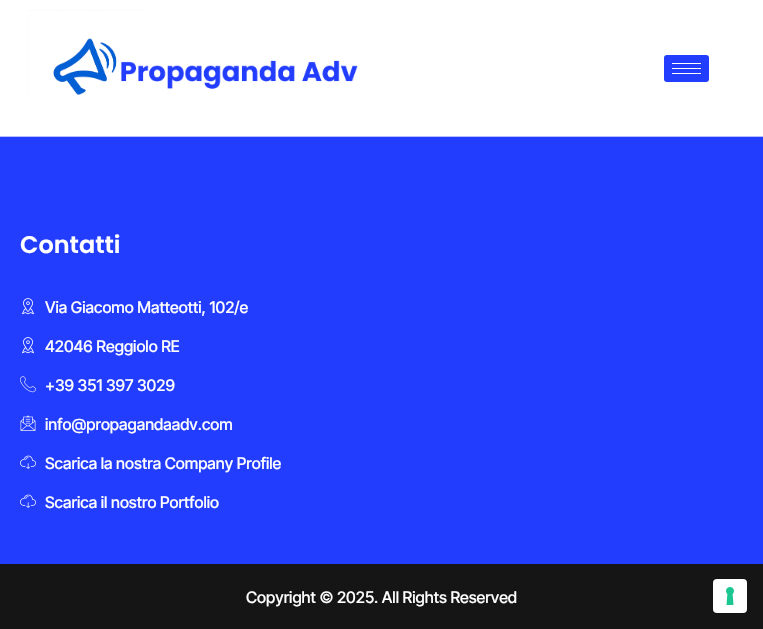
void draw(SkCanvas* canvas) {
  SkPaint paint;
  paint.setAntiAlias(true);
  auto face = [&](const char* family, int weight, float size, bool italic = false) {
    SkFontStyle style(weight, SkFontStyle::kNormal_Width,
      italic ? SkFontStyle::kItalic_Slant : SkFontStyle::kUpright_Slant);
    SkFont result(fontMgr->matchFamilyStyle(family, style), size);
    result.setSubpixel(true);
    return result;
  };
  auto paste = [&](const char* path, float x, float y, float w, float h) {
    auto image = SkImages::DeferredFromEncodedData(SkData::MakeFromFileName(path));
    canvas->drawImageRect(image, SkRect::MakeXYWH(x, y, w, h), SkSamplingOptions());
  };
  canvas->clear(0xff233dff);
  paint.setColor(0xffffffff);
  canvas->drawRect(SkRect::MakeXYWH(0, 0, 763, 136), paint);
  paint.setColor(0xffb6bfff);
  canvas->drawRect(SkRect::MakeXYWH(0, 136, 763, 1), paint);
  paste("img/1.png", 28, 10, 330, 85);
  paint.setColor(0xff233dff);
  canvas->drawRoundRect(SkRect::MakeXYWH(664, 55, 45, 27), 3, 3, paint);
  {
    const struct { float x, y, w, h; SkColor color; } items[] = {
      {672, 63, 29, 1, 0xffffffff},
      {672, 68, 29, 1, 0xffffffff},
      {672, 73, 29, 1, 0xffffffff},
    };
    for (auto [x, y, w, h, color] : items) {
      paint.setColor(color);
      canvas->drawRect(SkRect::MakeXYWH(x, y, w, h), paint);
    }
  }
  paste("img/2.png", 22, 298, 12, 17);
  paste("img/2.png", 22, 337, 12, 17);
  paste("img/3.png", 20, 376, 16, 17);
  paste("img/4.png", 20, 415, 16, 16);
  paste("img/5.png", 20, 455, 16, 14);
  paste("img/5.png", 20, 494, 16, 14);
  paint.setColor(0xff151515);
  canvas->drawRect(SkRect::MakeXYWH(0, 564, 763, 65), paint);
  paint.setStroke(true);
  paint.setStrokeWidth(1);
  paint.setColor(0xff121212);
  canvas->drawRoundRect(SkRect::MakeXYWH(712.5f, 578.5f, 35, 35), 4.5f, 4.5f, paint);
  paint.setStroke(false);
  paint.setColor(0xffffffff);
  canvas->drawRoundRect(SkRect::MakeXYWH(713, 579, 34, 34), 4, 4, paint);
  paste("img/6.png", 726, 587, 8, 18);
  auto f0 = face("Poppins", 600, 24);
  canvas->drawString("Contatti", 20, 253, f0, paint);
  auto f1 = face("Inter Tight", 500, 16);
  {
    const struct { const char* s; float x, y; } items[] = {
      {"Via Giacomo Matteotti, 102/e", 45, 313},
      {"42046 Reggiolo RE", 45, 352},
      {"+39 351 397 3029", 45, 391},
      {"info@propagandaadv.com", 45, 430},
      {"Scarica la nostra Company Profile", 45, 469},
      {"Scarica il nostro Portfolio", 45, 508},
      {"Copyright © 2025. All Rights Reserved", 246, 603},
    };
    for (auto [s, x, y] : items) {
      canvas->drawString(s, x, y, f1, paint);
    }
  }
}
